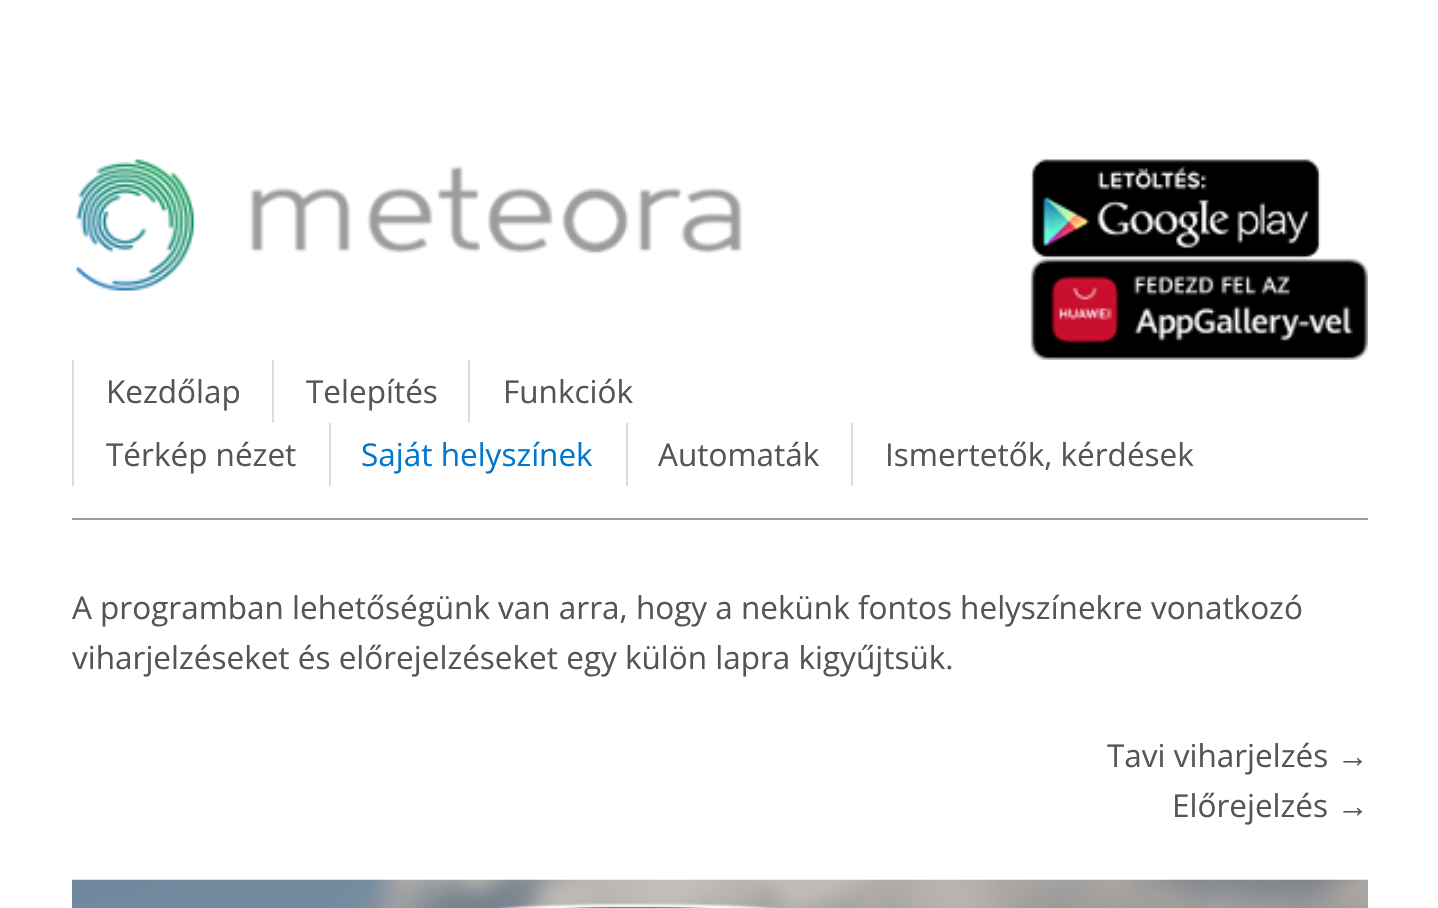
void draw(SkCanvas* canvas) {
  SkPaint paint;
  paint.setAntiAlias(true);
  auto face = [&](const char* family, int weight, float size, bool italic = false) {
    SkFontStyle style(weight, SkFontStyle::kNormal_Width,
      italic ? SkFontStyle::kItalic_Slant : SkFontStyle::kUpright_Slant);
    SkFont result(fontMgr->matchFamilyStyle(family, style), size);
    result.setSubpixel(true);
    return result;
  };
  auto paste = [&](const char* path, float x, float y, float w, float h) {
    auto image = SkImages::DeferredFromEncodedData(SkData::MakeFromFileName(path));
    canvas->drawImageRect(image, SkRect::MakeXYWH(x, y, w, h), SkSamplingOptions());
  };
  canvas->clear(0xffffffff);
  paste("img/1.png", 76, 159, 667, 132);
  paste("img/2.png", 1030, 159, 291, 100);
  paste("img/3.png", 1030, 258, 338, 102);
  {
    const struct { float x, y, w, h; SkColor color; } items[] = {
      {72, 360, 2, 126, 0xffdddddd},
      {272, 360, 2, 63, 0xffdddddd},
      {468, 360, 2, 63, 0xffdddddd},
      {329, 423, 2, 63, 0xffdddddd},
      {626, 423, 2, 63, 0xffdddddd},
      {851, 423, 2, 63, 0xffdddddd},
      {72, 518, 1296, 2, 0xff999999},
    };
    for (auto [x, y, w, h, color] : items) {
      paint.setColor(color);
      canvas->drawRect(SkRect::MakeXYWH(x, y, w, h), paint);
    }
  }
  paste("img/4.png", 72, 879, 1296, 29);
  auto f0 = face("Open Sans", 400, 31.5f);
  paint.setColor(0xff555555);
  {
    const struct { const char* s; float x, y; } items[] = {
      {"Kezdőlap", 106, 403},
      {"Telepítés", 306, 403},
      {"Funkciók", 503, 403},
      {"Térkép nézet", 106, 466},
    };
    for (auto [s, x, y] : items) {
      canvas->drawString(s, x, y, f0, paint);
    }
  }
  paint.setColor(0xff0078cf);
  canvas->drawString("Saját helyszínek", 361, 466, f0, paint);
  paint.setColor(0xff555555);
  {
    const struct { const char* s; float x, y; } items[] = {
      {"Automaták", 658, 466},
      {"Ismertetők, kérdések", 885, 466},
      {"A programban lehetőségünk van arra, hogy a nekünk fontos helyszínekre vonatkozó", 72, 619},
      {"viharjelzéseket és előrejelzéseket egy külön lapra kigyűjtsük.", 72, 669},
      {"Tavi viharjelzés", 1107, 767},
    };
    for (auto [s, x, y] : items) {
      canvas->drawString(s, x, y, f0, paint);
    }
  }
  auto f1 = face("Liberation Sans", 400, 31.5f);
  canvas->drawString("→", 1337, 767, f1, paint);
  canvas->drawString("Előrejelzés", 1172, 817, f0, paint);
  canvas->drawString("→", 1337, 817, f1, paint);
}
